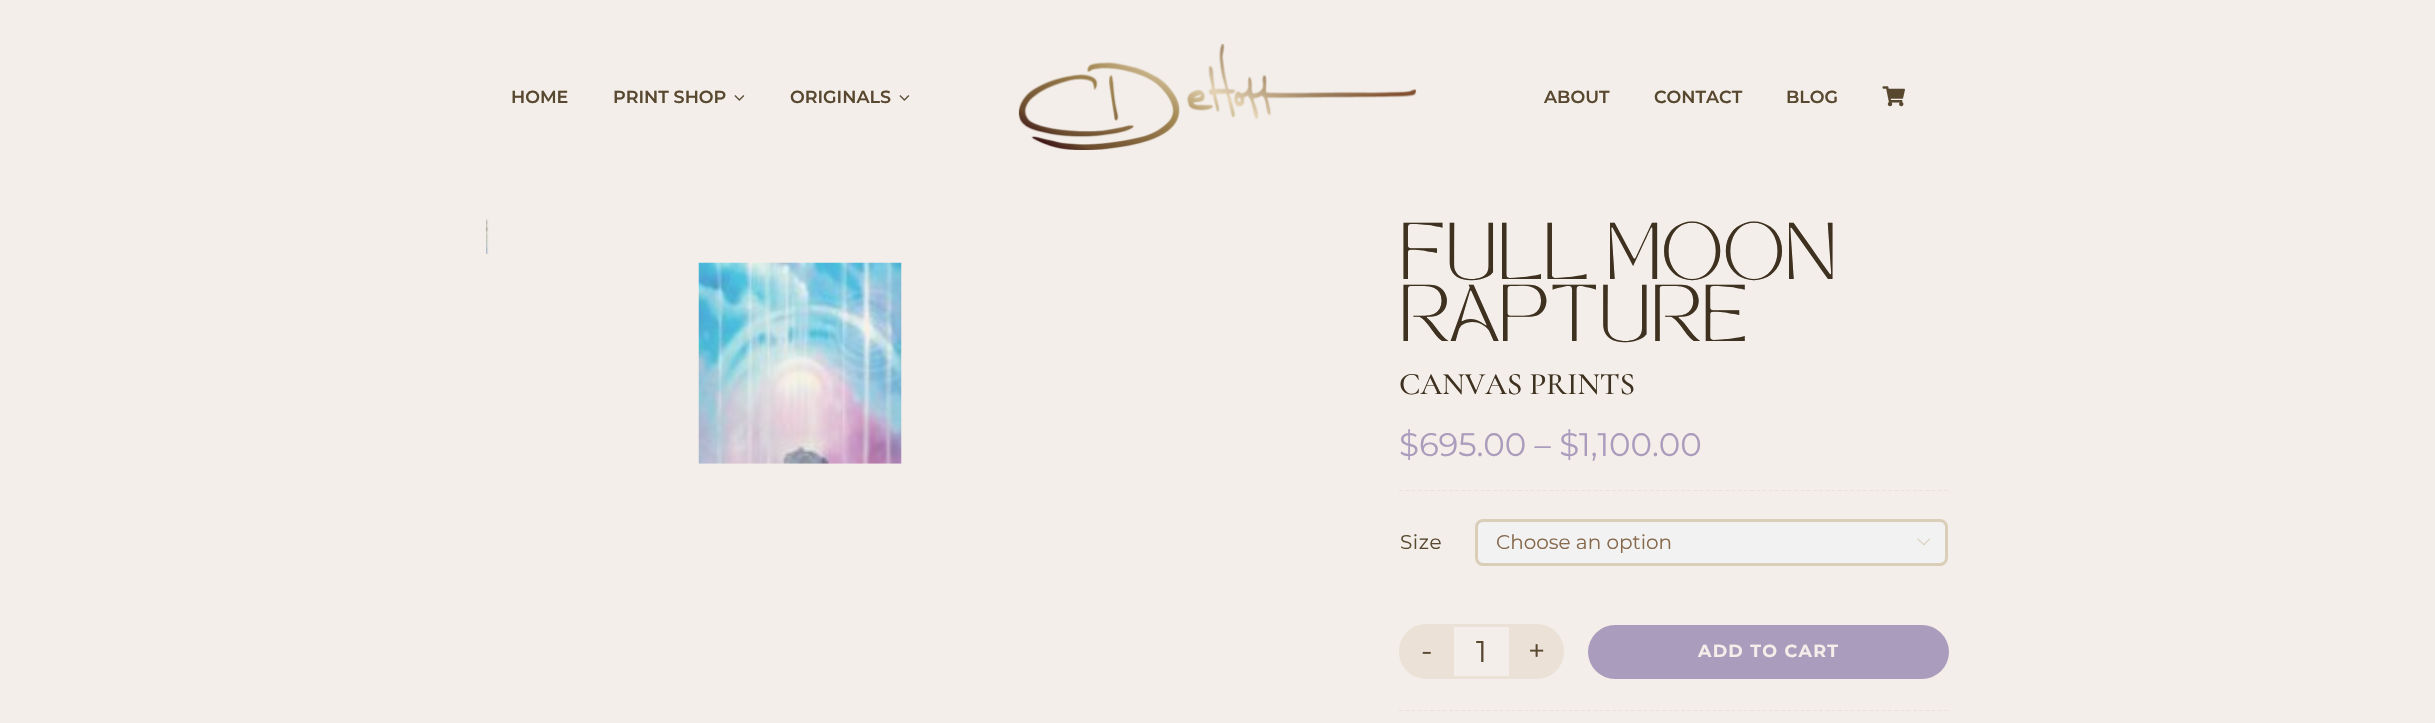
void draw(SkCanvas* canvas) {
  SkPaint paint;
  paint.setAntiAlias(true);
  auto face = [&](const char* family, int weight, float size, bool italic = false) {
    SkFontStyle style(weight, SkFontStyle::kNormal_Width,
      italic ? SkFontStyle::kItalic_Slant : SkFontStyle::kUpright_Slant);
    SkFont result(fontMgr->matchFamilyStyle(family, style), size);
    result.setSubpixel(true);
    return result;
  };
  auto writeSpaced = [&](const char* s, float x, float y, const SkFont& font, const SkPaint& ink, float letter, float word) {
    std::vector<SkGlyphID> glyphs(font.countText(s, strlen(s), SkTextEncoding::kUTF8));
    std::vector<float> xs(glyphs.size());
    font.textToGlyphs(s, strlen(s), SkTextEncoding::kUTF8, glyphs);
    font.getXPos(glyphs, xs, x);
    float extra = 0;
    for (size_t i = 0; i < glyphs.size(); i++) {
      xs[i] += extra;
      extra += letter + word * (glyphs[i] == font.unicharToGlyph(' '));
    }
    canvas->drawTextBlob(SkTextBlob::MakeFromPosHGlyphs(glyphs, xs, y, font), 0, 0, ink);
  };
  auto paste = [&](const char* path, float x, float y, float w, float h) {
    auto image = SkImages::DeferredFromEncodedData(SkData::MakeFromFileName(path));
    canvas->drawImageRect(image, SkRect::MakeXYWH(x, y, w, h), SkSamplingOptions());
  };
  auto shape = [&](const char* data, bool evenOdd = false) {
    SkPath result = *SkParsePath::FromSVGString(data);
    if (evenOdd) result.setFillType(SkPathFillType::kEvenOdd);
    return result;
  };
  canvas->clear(0xfff3eee9);
  paste("img/1.png", 734, 95, 11, 6);
  paste("img/1.png", 899, 95, 11, 6);
  paste("img/2.png", 1018, 43, 399, 107);
  paste("img/3.png", 1882, 86, 23, 21);
  paste("img/4.png", 486, 219, 3, 35);
  paste("img/5.png", 698, 262, 204, 202);
  paint.setStroke(true);
  paint.setStrokeWidth(1.2f);
  paint.setColor(0xffebe1d7);
  paint.setPathEffect(SkDashPathEffect::Make({{3.75f, 2.52f}}, 0));
  canvas->drawPath(shape("M1399 490.5H1949"), paint);
  paint.setPathEffect(nullptr);
  paint.setStroke(false);
  paint.setColor(0xfff2f2f2);
  canvas->drawRoundRect(SkRect::MakeXYWH(1476.5f, 520.5f, 470, 44), 6.5f, 6.5f, paint);
  paint.setStroke(true);
  paint.setStrokeWidth(3);
  paint.setColor(0xffdaceb9);
  canvas->drawRoundRect(SkRect::MakeXYWH(1476.5f, 520.5f, 470, 44), 6.5f, 6.5f, paint);
  paste("img/6.png", 1917, 538, 13, 8);
  paint.setStroke(false);
  paint.setColor(0xffebe1d7);
  canvas->drawPath(shape("M1426.5 625.5H1452.5V677.5H1426.5C1412 677.5 1400.5 666 1400.5 651.5C1400.5 637 1412 625.5 1426.5 625.5Z"), paint);
  paint.setStroke(true);
  canvas->drawPath(shape("M1426.5 625.5H1452.5V677.5H1426.5C1412 677.5 1400.5 666 1400.5 651.5C1400.5 637 1412 625.5 1426.5 625.5Z"), paint);
  paint.setStroke(false);
  canvas->drawRect(SkRect::MakeXYWH(1454, 624, 55, 3), paint);
  canvas->drawRect(SkRect::MakeXYWH(1454, 676, 55, 3), paint);
  canvas->drawPath(shape("M1510.5 625.5H1536.5C1551 625.5 1562.5 637 1562.5 651.5C1562.5 666 1551 677.5 1536.5 677.5H1510.5Z"), paint);
  paint.setStroke(true);
  canvas->drawPath(shape("M1510.5 625.5H1536.5C1551 625.5 1562.5 637 1562.5 651.5C1562.5 666 1551 677.5 1536.5 677.5H1510.5Z"), paint);
  paint.setStroke(false);
  paint.setColor(0xffa99cbc);
  canvas->drawRoundRect(SkRect::MakeXYWH(1588, 625, 361, 54), 27, 27, paint);
  paint.setStroke(true);
  paint.setStrokeWidth(1.2f);
  paint.setColor(0xffebe1d7);
  paint.setPathEffect(SkDashPathEffect::Make({{3.75f, 2.52f}}, 0));
  canvas->drawPath(shape("M1399 710.5H1949"), paint);
  paint.setPathEffect(nullptr);
  auto f0 = face("Montserrat", 600, 17.5f);
  paint.setStroke(false);
  paint.setColor(0xff57482f);
  {
    const struct { const char* s; float x, y; } items[] = {
      {"HOME", 511, 103},
      {"PRINT SHOP", 613, 103},
      {"ORIGINALS", 790, 103},
      {"ABOUT", 1544, 103},
      {"CONTACT", 1654, 103},
      {"BLOG", 1786, 103},
    };
    for (auto [s, x, y] : items) {
      canvas->drawString(s, x, y, f0, paint);
    }
  }
  auto f1 = face("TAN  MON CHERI", 400, 56.25f);
  paint.setColor(0xff3f3120);
  writeSpaced("FULL MOON", 1399, 279, f1, paint, -0.25f, 0);
  writeSpaced("RAPTURE", 1399, 341, f1, paint, -0.25f, 0);
  auto f2 = face("Cormorant Garamond", 300, 31.25f);
  writeSpaced("CANVAS PRINTS", 1399, 394, f2, paint, -0.25f, 0);
  auto f3 = face("Montserrat", 400, 32.5f);
  paint.setColor(0xffa99cbc);
  writeSpaced("$695.00 – $1,100.00", 1399, 456, f3, paint, -0.1f, 0);
  auto f4 = face("Montserrat", 400, 20);
  paint.setColor(0xff57482f);
  writeSpaced("Size", 1400, 549, f4, paint, 0.5f, 0);
  paint.setColor(0xff86684b);
  canvas->drawString("Choose an option", 1496, 549, f4, paint);
  auto f5 = face("Montserrat", 400, 30);
  paint.setColor(0xff57482f);
  {
    const struct { const char* s; float x, y; } items[] = {
      {"-", 1421, 661},
      {"1", 1476, 662},
      {"+", 1528, 661},
    };
    for (auto [s, x, y] : items) {
      canvas->drawString(s, x, y, f5, paint);
    }
  }
  auto f6 = face("Montserrat", 700, 17.5f);
  paint.setColor(0xfff3eee9);
  writeSpaced("ADD TO CART", 1698, 657, f6, paint, 1.25f, 0);
}
